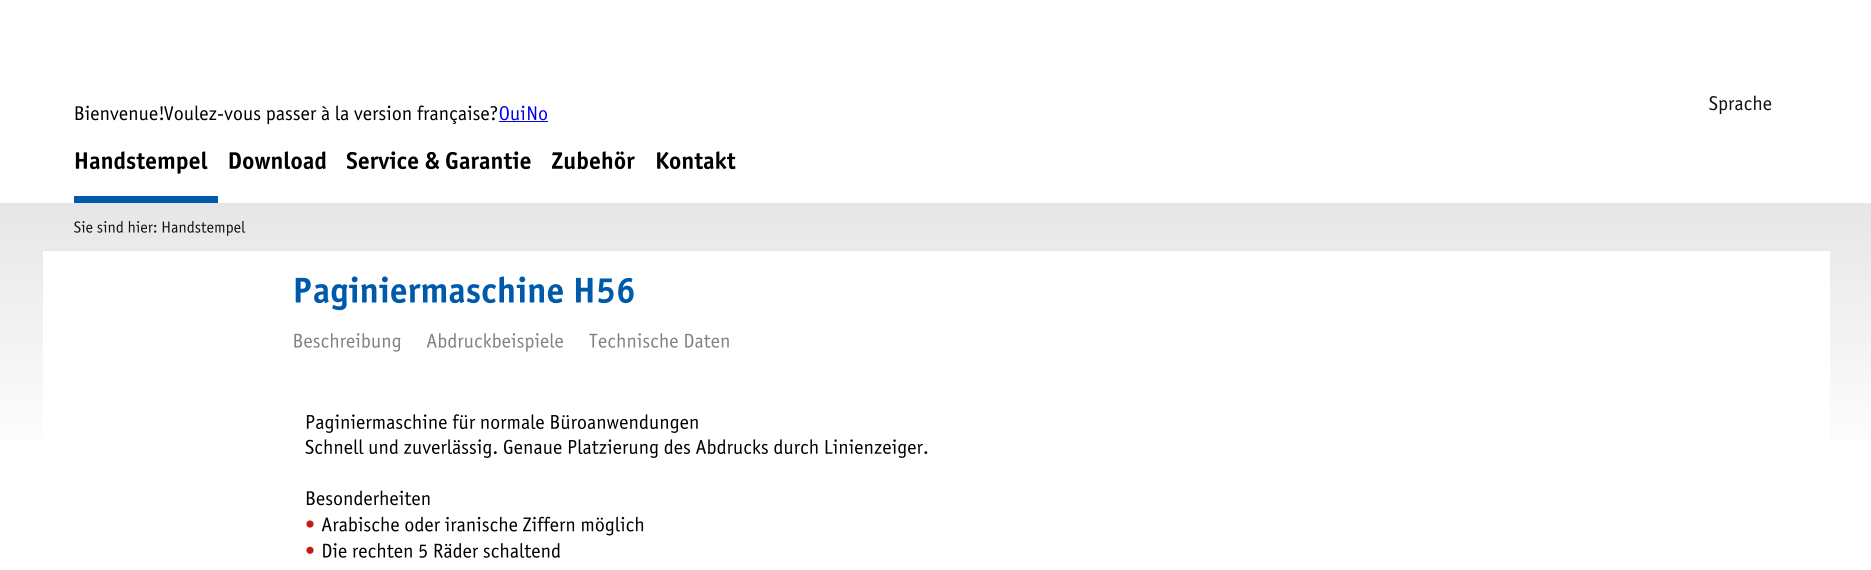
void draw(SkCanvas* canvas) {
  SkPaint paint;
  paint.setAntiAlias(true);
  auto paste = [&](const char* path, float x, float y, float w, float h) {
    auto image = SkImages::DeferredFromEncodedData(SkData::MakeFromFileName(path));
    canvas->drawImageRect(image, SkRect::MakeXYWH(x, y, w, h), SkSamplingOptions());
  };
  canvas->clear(0xffffffff);
  paste("img/1.png", 75, 105, 88, 16);
  paste("img/2.png", 164, 105, 333, 20);
  paste("img/3.png", 499, 105, 26, 16);
  paste("img/4.png", 528, 106, 19, 15);
  paint.setColor(0xff0000ee);
  canvas->drawRect(SkRect::MakeXYWH(499, 121, 49, 1), paint);
  paste("img/5.png", 1709, 95, 63, 20);
  paint.setColor(0xff005aab);
  canvas->drawRect(SkRect::MakeXYWH(74, 196, 144, 7), paint);
  paste("img/6.png", 75, 151, 133, 23);
  paste("img/7.png", 229, 151, 97, 19);
  paste("img/8.png", 346, 151, 185, 19);
  paste("img/9.png", 552, 151, 83, 19);
  paste("img/10.png", 657, 151, 79, 19);
  {
    const SkColor colors[] = {0xffe6e6e6, 0xfff7f7f7, 0xffffffff, 0xffffffff};
    const float stops[] = {0, 0.2f, 0.3f, 1};
    const SkPoint ends[] = {{936, 202}, {936, 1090}};
    paint.setShader(SkGradientShader::MakeLinear(ends, colors, stops, 4, SkTileMode::kClamp));
    paint.setAlpha(255);
  }
  canvas->drawRect(SkRect::MakeXYWH(0, 203, 1871, 238), paint);
  paint.setShader(nullptr);
  paint.setColor(0xffe8e8e8);
  canvas->drawRect(SkRect::MakeXYWH(43, 249, 1787, 2), paint);
  paste("img/11.png", 74, 220, 83, 13);
  paste("img/12.png", 162, 220, 84, 16);
  paint.setColor(0xffffffff);
  canvas->drawRect(SkRect::MakeXYWH(43, 251, 1787, 190), paint);
  paste("img/13.png", 295, 276, 339, 35);
  paste("img/14.png", 294, 333, 107, 19);
  paste("img/15.png", 426, 333, 137, 19);
  paste("img/16.png", 589, 333, 140, 15);
  paste("img/17.png", 306, 414, 392, 19);
  paste("img/18.png", 305, 439, 623, 19);
  paste("img/19.png", 306, 490, 124, 16);
  paste("img/20.png", 306, 520, 8, 8);
  paste("img/21.png", 321, 516, 323, 20);
  paste("img/22.png", 306, 546, 8, 8);
  paste("img/23.png", 323, 543, 237, 15);
}
